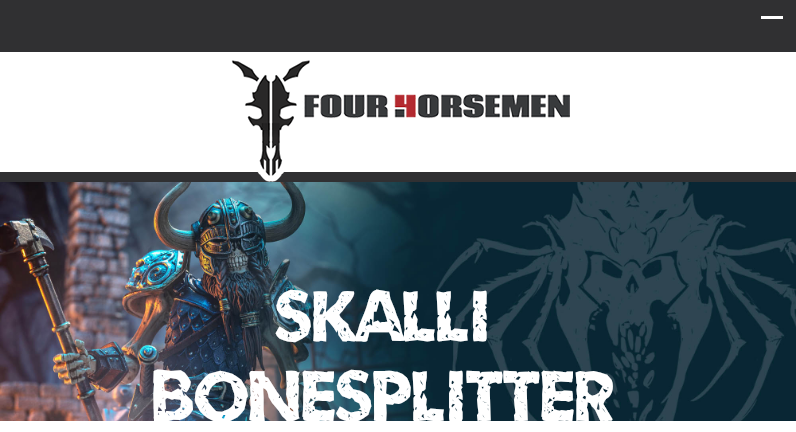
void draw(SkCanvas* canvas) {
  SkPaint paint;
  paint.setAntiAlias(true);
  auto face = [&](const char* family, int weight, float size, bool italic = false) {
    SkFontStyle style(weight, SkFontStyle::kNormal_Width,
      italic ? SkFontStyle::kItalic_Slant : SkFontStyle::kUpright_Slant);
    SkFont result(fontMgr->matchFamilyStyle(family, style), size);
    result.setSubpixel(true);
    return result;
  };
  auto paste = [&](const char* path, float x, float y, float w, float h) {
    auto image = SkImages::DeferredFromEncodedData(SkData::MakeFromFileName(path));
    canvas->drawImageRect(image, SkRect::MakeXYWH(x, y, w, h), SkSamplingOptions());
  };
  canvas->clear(0xffffffff);
  {
    const struct { float x, y, w, h; SkColor color; } items[] = {
      {0, 0, 796, 52, 0xff303032},
      {761, 16, 22, 3, 0xffffffff},
      {0, 172, 796, 10, 0xff303032},
    };
    for (auto [x, y, w, h, color] : items) {
      paint.setColor(color);
      canvas->drawRect(SkRect::MakeXYWH(x, y, w, h), paint);
    }
  }
  paste("img/1.png", 231, 60, 339, 122);
  paste("img/2.png", 0, 182, 796, 239);
  auto f0 = face("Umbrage", 400, 80);
  paint.setColor(0xffffffff);
  canvas->drawString("Skalli", 275, 341, f0, paint);
  canvas->drawString("Bonesplitter", 152, 421, f0, paint);
}
